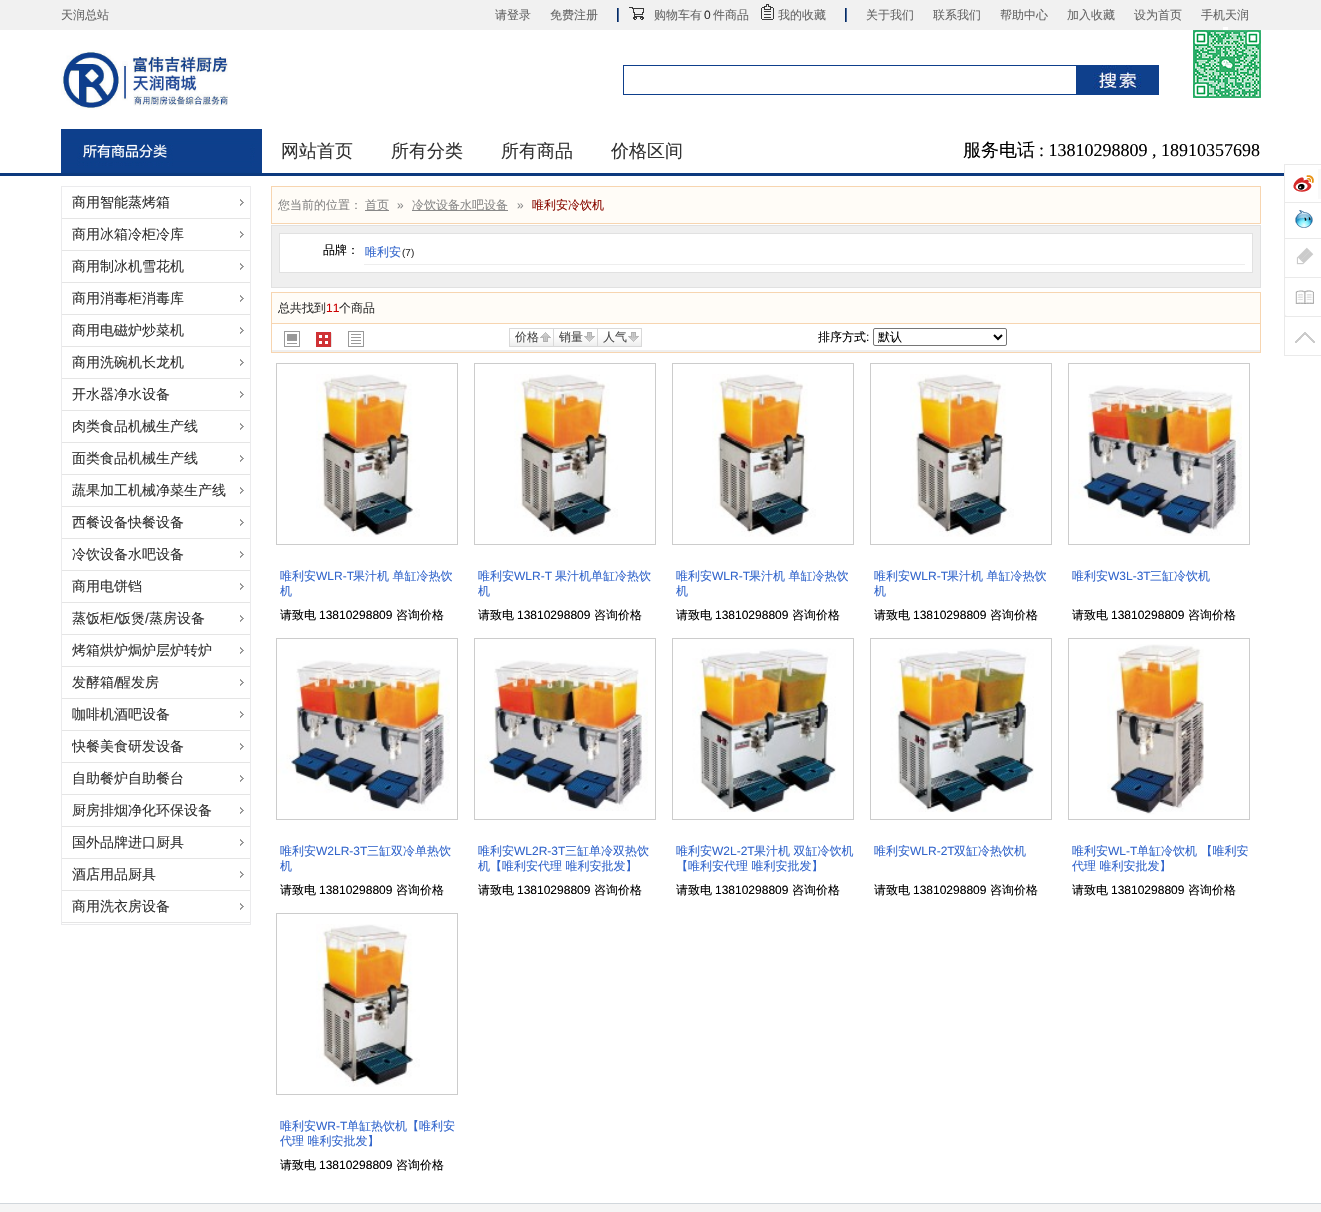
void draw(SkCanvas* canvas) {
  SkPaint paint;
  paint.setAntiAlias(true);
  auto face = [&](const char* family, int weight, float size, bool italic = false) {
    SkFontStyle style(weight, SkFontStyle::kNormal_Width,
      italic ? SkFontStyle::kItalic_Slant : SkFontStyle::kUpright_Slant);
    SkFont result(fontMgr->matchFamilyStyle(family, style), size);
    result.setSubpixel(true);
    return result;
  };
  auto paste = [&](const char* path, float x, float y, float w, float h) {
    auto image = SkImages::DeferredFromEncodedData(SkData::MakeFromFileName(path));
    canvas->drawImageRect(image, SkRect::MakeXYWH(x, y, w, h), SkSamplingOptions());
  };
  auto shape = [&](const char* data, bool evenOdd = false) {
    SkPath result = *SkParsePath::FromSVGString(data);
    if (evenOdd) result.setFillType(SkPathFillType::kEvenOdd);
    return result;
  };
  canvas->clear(0xffffffff);
  {
    const struct { float x, y, w, h; SkColor color; } items[] = {
      {0, 0, 1321, 30, 0xfff1f1f1},
      {617, 8, 1, 14, 0xff062a62},
      {618, 8, 1, 14, 0xff49699b},
    };
    for (auto [x, y, w, h, color] : items) {
      paint.setColor(color);
      canvas->drawRect(SkRect::MakeXYWH(x, y, w, h), paint);
    }
  }
  paste("img/1.png", 629, 7, 15, 13);
  paste("img/2.png", 761, 4, 13, 16);
  {
    const struct { float x, y, w, h; SkColor color; } items[] = {
      {845, 8, 1, 14, 0xff062a62},
      {846, 8, 1, 14, 0xff49699b},
      {1223, 27, 5, 3, 0xffffffff},
    };
    for (auto [x, y, w, h, color] : items) {
      paint.setColor(color);
      canvas->drawRect(SkRect::MakeXYWH(x, y, w, h), paint);
    }
  }
  paste("img/3.png", 1193, 30, 68, 68);
  paste("img/4.png", 61, 50, 167, 60);
  paint.setStroke(true);
  paint.setStrokeWidth(1);
  paint.setColor(0xff0e3f8c);
  canvas->drawRect(SkRect::MakeXYWH(623.5f, 65.5f, 453, 29), paint);
  paste("img/5.png", 1077, 65, 82, 30);
  paint.setStroke(false);
  paint.setColor(0xff0c397e);
  canvas->drawRect(SkRect::MakeXYWH(0, 173, 1284, 3), paint);
  paste("img/6.png", 61, 129, 201, 44);
  paint.setColor(0xffd1d7dc);
  canvas->drawRect(SkRect::MakeXYWH(0, 1203, 1321, 1), paint);
  paste("img/7.png", 1285, 164, 36, 35);
  {
    const struct { float x, y, w, h; SkColor color; } items[] = {
      {1284, 202, 37, 1, 0xffeaeaea},
      {1284, 164, 1, 39, 0xffeaeaea},
      {1284, 238, 37, 1, 0xffeaeaea},
      {1284, 200, 1, 39, 0xffeaeaea},
    };
    for (auto [x, y, w, h, color] : items) {
      paint.setColor(color);
      canvas->drawRect(SkRect::MakeXYWH(x, y, w, h), paint);
    }
  }
  paste("img/8.png", 1295, 210, 18, 18);
  paste("img/9.png", 1284, 239, 30, 38);
  canvas->drawRect(SkRect::MakeXYWH(1284, 277, 37, 1), paint);
  paste("img/10.png", 1285, 278, 36, 38);
  canvas->drawRect(SkRect::MakeXYWH(1284, 316, 37, 1), paint);
  canvas->drawRect(SkRect::MakeXYWH(1284, 278, 1, 39), paint);
  paste("img/11.png", 1295, 332, 20, 11);
  {
    const struct { float x, y, w, h; SkColor color; } items[] = {
      {1284, 355, 37, 1, 0xffeaeaea},
      {1284, 317, 1, 39, 0xffeaeaea},
      {0, 1204, 1321, 8, 0xfff5f5f5},
    };
    for (auto [x, y, w, h, color] : items) {
      paint.setColor(color);
      canvas->drawRect(SkRect::MakeXYWH(x, y, w, h), paint);
    }
  }
  paint.setStroke(true);
  paint.setColor(0xffebebed);
  canvas->drawRect(SkRect::MakeXYWH(61.5f, 186.5f, 189, 738), paint);
  paint.setStroke(false);
  paint.setColor(0xffe5e5e5);
  canvas->drawRect(SkRect::MakeXYWH(62, 218, 188, 1), paint);
  paste("img/12.png", 240, 199, 4, 7);
  canvas->drawRect(SkRect::MakeXYWH(62, 250, 188, 1), paint);
  paste("img/12.png", 240, 231, 4, 7);
  canvas->drawRect(SkRect::MakeXYWH(62, 282, 188, 1), paint);
  paste("img/12.png", 240, 263, 4, 7);
  canvas->drawRect(SkRect::MakeXYWH(62, 314, 188, 1), paint);
  paste("img/12.png", 240, 295, 4, 7);
  canvas->drawRect(SkRect::MakeXYWH(62, 346, 188, 1), paint);
  paste("img/12.png", 240, 327, 4, 7);
  canvas->drawRect(SkRect::MakeXYWH(62, 378, 188, 1), paint);
  paste("img/12.png", 240, 359, 4, 7);
  canvas->drawRect(SkRect::MakeXYWH(62, 410, 188, 1), paint);
  paste("img/12.png", 240, 391, 4, 7);
  canvas->drawRect(SkRect::MakeXYWH(62, 442, 188, 1), paint);
  paste("img/12.png", 240, 423, 4, 7);
  canvas->drawRect(SkRect::MakeXYWH(62, 474, 188, 1), paint);
  paste("img/12.png", 240, 455, 4, 7);
  canvas->drawRect(SkRect::MakeXYWH(62, 506, 188, 1), paint);
  paste("img/12.png", 240, 487, 4, 7);
  canvas->drawRect(SkRect::MakeXYWH(62, 538, 188, 1), paint);
  paste("img/12.png", 240, 519, 4, 7);
  canvas->drawRect(SkRect::MakeXYWH(62, 570, 188, 1), paint);
  paste("img/12.png", 240, 551, 4, 7);
  canvas->drawRect(SkRect::MakeXYWH(62, 602, 188, 1), paint);
  paste("img/12.png", 240, 583, 4, 7);
  canvas->drawRect(SkRect::MakeXYWH(62, 634, 188, 1), paint);
  paste("img/12.png", 240, 615, 4, 7);
  canvas->drawRect(SkRect::MakeXYWH(62, 666, 188, 1), paint);
  paste("img/12.png", 240, 647, 4, 7);
  canvas->drawRect(SkRect::MakeXYWH(62, 698, 188, 1), paint);
  paste("img/12.png", 240, 679, 4, 7);
  canvas->drawRect(SkRect::MakeXYWH(62, 730, 188, 1), paint);
  paste("img/12.png", 240, 711, 4, 7);
  canvas->drawRect(SkRect::MakeXYWH(62, 762, 188, 1), paint);
  paste("img/12.png", 240, 743, 4, 7);
  canvas->drawRect(SkRect::MakeXYWH(62, 794, 188, 1), paint);
  paste("img/12.png", 240, 775, 4, 7);
  canvas->drawRect(SkRect::MakeXYWH(62, 826, 188, 1), paint);
  paste("img/12.png", 240, 807, 4, 7);
  canvas->drawRect(SkRect::MakeXYWH(62, 858, 188, 1), paint);
  paste("img/12.png", 240, 839, 4, 7);
  canvas->drawRect(SkRect::MakeXYWH(62, 890, 188, 1), paint);
  paste("img/12.png", 240, 871, 4, 7);
  canvas->drawRect(SkRect::MakeXYWH(62, 922, 188, 1), paint);
  paste("img/12.png", 240, 903, 4, 7);
  paint.setColor(0xfffffcf7);
  canvas->drawRect(SkRect::MakeXYWH(271.5f, 186.5f, 989, 37), paint);
  paint.setStroke(true);
  paint.setColor(0xfff7d5b0);
  canvas->drawRect(SkRect::MakeXYWH(271.5f, 186.5f, 989, 37), paint);
  paint.setStroke(false);
  paint.setColor(0xff888888);
  canvas->drawRect(SkRect::MakeXYWH(365, 210, 24, 1), paint);
  canvas->drawRect(SkRect::MakeXYWH(412, 210, 96, 1), paint);
  paint.setColor(0xffefefef);
  canvas->drawRect(SkRect::MakeXYWH(271.5f, 225.5f, 989, 62), paint);
  paint.setStroke(true);
  paint.setColor(0xffe1e1e1);
  canvas->drawRect(SkRect::MakeXYWH(271.5f, 225.5f, 989, 62), paint);
  paint.setStroke(false);
  paint.setColor(0xffffffff);
  canvas->drawRect(SkRect::MakeXYWH(279.5f, 233.5f, 973, 39), paint);
  paint.setStroke(true);
  paint.setColor(0xffe1e1e1);
  canvas->drawRect(SkRect::MakeXYWH(279.5f, 233.5f, 973, 39), paint);
  paint.setStroke(false);
  {
    const struct { float x, y, w, h; SkColor color; } items[] = {
      {364, 264, 881, 1, 0xffeeeeee},
      {272, 293, 988, 30, 0xfffffcf7},
      {271, 292, 990, 1, 0xfff7d5b0},
      {1260, 292, 1, 31, 0xfff7d5b0},
      {271, 292, 1, 31, 0xfff7d5b0},
    };
    for (auto [x, y, w, h, color] : items) {
      paint.setColor(color);
      canvas->drawRect(SkRect::MakeXYWH(x, y, w, h), paint);
    }
  }
  paint.setStroke(true);
  canvas->drawRect(SkRect::MakeXYWH(271.5f, 323.5f, 989, 29), paint);
  paint.setStroke(false);
  paint.setColor(0xffefefef);
  canvas->drawRect(SkRect::MakeXYWH(272, 350, 988, 2), paint);
  paste("img/13.png", 284, 331, 16, 16);
  paste("img/14.png", 316, 332, 16, 15);
  paste("img/15.png", 348, 331, 16, 16);
  paste("img/16.png", 510, 338, 43, 8);
  paint.setStroke(true);
  paint.setColor(0xffd9d9d9);
  canvas->drawRect(SkRect::MakeXYWH(509.5f, 328.5f, 44, 18), paint);
  paste("img/17.png", 540, 332, 11, 10);
  paste("img/18.png", 554, 329, 43, 17);
  canvas->drawRect(SkRect::MakeXYWH(553.5f, 328.5f, 44, 18), paint);
  paste("img/19.png", 584, 332, 11, 10);
  paste("img/18.png", 598, 329, 43, 17);
  canvas->drawRect(SkRect::MakeXYWH(597.5f, 328.5f, 44, 18), paint);
  paste("img/19.png", 628, 332, 11, 10);
  paint.setColor(0xff767676);
  canvas->drawRoundRect(SkRect::MakeXYWH(873.5f, 328.5f, 133, 17), 1.5f, 1.5f, paint);
  paint.setStrokeWidth(2);
  paint.setColor(0xff000000);
  canvas->drawPath(shape("M994 335L998 339L1002 335"), paint);
  paint.setStrokeWidth(1);
  paint.setColor(0xffcccccc);
  canvas->drawRect(SkRect::MakeXYWH(276.5f, 363.5f, 181, 181), paint);
  paste("img/20.png", 316, 374, 104, 163);
  canvas->drawRect(SkRect::MakeXYWH(474.5f, 363.5f, 181, 181), paint);
  paste("img/21.png", 514, 374, 104, 163);
  canvas->drawRect(SkRect::MakeXYWH(672.5f, 363.5f, 181, 181), paint);
  paste("img/21.png", 712, 374, 104, 163);
  canvas->drawRect(SkRect::MakeXYWH(870.5f, 363.5f, 181, 181), paint);
  paste("img/22.png", 910, 374, 104, 163);
  canvas->drawRect(SkRect::MakeXYWH(1068.5f, 363.5f, 181, 181), paint);
  paste("img/23.png", 1069, 385, 173, 151);
  canvas->drawRect(SkRect::MakeXYWH(276.5f, 638.5f, 181, 181), paint);
  paste("img/24.png", 277, 660, 173, 151);
  canvas->drawRect(SkRect::MakeXYWH(474.5f, 638.5f, 181, 181), paint);
  paste("img/25.png", 475, 660, 173, 151);
  canvas->drawRect(SkRect::MakeXYWH(672.5f, 638.5f, 181, 181), paint);
  paste("img/26.png", 692, 648, 144, 165);
  canvas->drawRect(SkRect::MakeXYWH(870.5f, 638.5f, 181, 181), paint);
  paste("img/27.png", 890, 648, 144, 165);
  canvas->drawRect(SkRect::MakeXYWH(1068.5f, 638.5f, 181, 181), paint);
  paste("img/28.png", 1107, 644, 97, 171);
  canvas->drawRect(SkRect::MakeXYWH(276.5f, 913.5f, 181, 181), paint);
  paste("img/29.png", 316, 924, 104, 163);
  auto f0 = face("WenQuanYi Zen Hei", 500, 12);
  paint.setStroke(false);
  paint.setColor(0xff666666);
  {
    const struct { const char* s; float x, y; } items[] = {
      {"天润总站", 61, 19},
      {"请登录", 495, 19},
      {"免费注册", 550, 19},
      {"购物车有", 654, 19},
    };
    for (auto [s, x, y] : items) {
      canvas->drawString(s, x, y, f0, paint);
    }
  }
  auto f1 = face("Liberation Sans", 400, 12);
  paint.setColor(0xff333333);
  canvas->drawString("0", 704, 19, f1, paint);
  paint.setColor(0xff666666);
  {
    const struct { const char* s; float x, y; } items[] = {
      {"件商品", 713, 19},
      {"我的收藏", 778, 19},
      {"关于我们", 866, 19},
      {"联系我们", 933, 19},
      {"帮助中心", 1000, 19},
      {"加入收藏", 1067, 19},
      {"设为首页", 1134, 19},
      {"手机天润", 1201, 19},
    };
    for (auto [s, x, y] : items) {
      canvas->drawString(s, x, y, f0, paint);
    }
  }
  auto f2 = face("WenQuanYi Zen Hei", 500, 18);
  paint.setColor(0xff333333);
  {
    const struct { const char* s; float x, y; } items[] = {
      {"网站首页", 281, 157},
      {"所有分类", 391, 157},
      {"所有商品", 501, 157},
      {"价格区间", 611, 157},
    };
    for (auto [s, x, y] : items) {
      canvas->drawString(s, x, y, f2, paint);
    }
  }
  paint.setColor(0xff000000);
  canvas->drawString("服务电话", 963, 156, f2, paint);
  auto f3 = face("Liberation Serif", 400, 18);
  canvas->drawString(": 13810298809 , 18910357698", 1039, 156, f3, paint);
  auto f4 = face("WenQuanYi Zen Hei", 500, 14);
  paint.setColor(0xff333333);
  {
    const struct { const char* s; float x, y; } items[] = {
      {"商用智能蒸烤箱", 72, 207},
      {"商用冰箱冷柜冷库", 72, 239},
      {"商用制冰机雪花机", 72, 271},
      {"商用消毒柜消毒库", 72, 303},
      {"商用电磁炉炒菜机", 72, 335},
      {"商用洗碗机长龙机", 72, 367},
      {"开水器净水设备", 72, 399},
      {"肉类食品机械生产线", 72, 431},
      {"面类食品机械生产线", 72, 463},
      {"蔬果加工机械净菜生产线", 72, 495},
      {"西餐设备快餐设备", 72, 527},
      {"冷饮设备水吧设备", 72, 559},
      {"商用电饼铛", 72, 591},
      {"蒸饭柜", 72, 623},
    };
    for (auto [s, x, y] : items) {
      canvas->drawString(s, x, y, f4, paint);
    }
  }
  auto f5 = face("Liberation Sans", 400, 14);
  canvas->drawString("/", 114, 623, f5, paint);
  canvas->drawString("饭煲", 117, 623, f4, paint);
  canvas->drawString("/", 145, 623, f5, paint);
  {
    const struct { const char* s; float x, y; } items[] = {
      {"蒸房设备", 149, 623},
      {"烤箱烘炉焗炉层炉转炉", 72, 655},
      {"发酵箱", 72, 687},
    };
    for (auto [s, x, y] : items) {
      canvas->drawString(s, x, y, f4, paint);
    }
  }
  canvas->drawString("/", 114, 687, f5, paint);
  canvas->drawString("醒发房", 117, 687, f4, paint);
  canvas->drawString("咖啡机酒吧设备", 72, 719, f4, paint);
  canvas->save();
  canvas->clipRect(SkRect::MakeXYWH(72, 734, 176, 25));
  canvas->drawString("快餐美食研发设备", 72, 751, f4, paint);
  canvas->restore();
  {
    const struct { const char* s; float x, y; } items[] = {
      {"自助餐炉自助餐台", 72, 783},
      {"厨房排烟净化环保设备", 72, 815},
      {"国外品牌进口厨具", 72, 847},
      {"酒店用品厨具", 72, 879},
      {"商用洗衣房设备", 72, 911},
    };
    for (auto [s, x, y] : items) {
      canvas->drawString(s, x, y, f4, paint);
    }
  }
  paint.setColor(0xff888888);
  canvas->drawString("您当前的位置：", 278, 209, f0, paint);
  canvas->drawString("首页", 365, 209, f0, paint);
  canvas->drawString("»", 397, 209, f1, paint);
  canvas->drawString("冷饮设备水吧设备", 412, 209, f0, paint);
  canvas->drawString("»", 517, 209, f1, paint);
  paint.setColor(0xff8a0b02);
  canvas->drawString("唯利安冷饮机", 532, 209, f0, paint);
  paint.setColor(0xff000000);
  canvas->drawString("品牌：", 323, 254, f0, paint);
  paint.setColor(0xff3366cc);
  canvas->drawString("唯利安", 365, 256, f0, paint);
  auto f6 = face("Liberation Sans", 400, 10);
  paint.setColor(0xff333333);
  canvas->drawString("(7)", 402, 256, f6, paint);
  canvas->drawString("总共找到", 278, 312, f0, paint);
  paint.setColor(0xffcc0000);
  canvas->drawString("11", 326, 312, f1, paint);
  paint.setColor(0xff333333);
  canvas->drawString("个商品", 339, 312, f0, paint);
  paint.setColor(0xff4a4a4a);
  {
    const struct { const char* s; float x, y; } items[] = {
      {"价格", 515, 341},
      {"销量", 559, 341},
      {"人气", 603, 341},
    };
    for (auto [s, x, y] : items) {
      canvas->drawString(s, x, y, f0, paint);
    }
  }
  paint.setColor(0xff000000);
  canvas->drawString("排序方式", 818, 341, f0, paint);
  canvas->drawString(":", 866, 341, f1, paint);
  canvas->drawString("默认", 878, 341, f0, paint);
  paint.setColor(0xff3366cc);
  canvas->drawString("唯利安", 280, 580, f0, paint);
  canvas->drawString("WLR-T", 316, 580, f1, paint);
  canvas->drawString("果汁机 单缸冷热饮", 353, 580, f0, paint);
  canvas->drawString("机", 280, 595, f0, paint);
  paint.setColor(0xff000000);
  canvas->drawString("请致电", 280, 619, f0, paint);
  canvas->drawString("13810298809", 319, 619, f1, paint);
  canvas->drawString("咨询价格", 396, 619, f0, paint);
  paint.setColor(0xff3366cc);
  canvas->drawString("唯利安", 478, 580, f0, paint);
  canvas->drawString("WLR-T", 514, 580, f1, paint);
  canvas->drawString("果汁机单缸冷热饮", 555, 580, f0, paint);
  canvas->drawString("机", 478, 595, f0, paint);
  paint.setColor(0xff000000);
  canvas->drawString("请致电", 478, 619, f0, paint);
  canvas->drawString("13810298809", 517, 619, f1, paint);
  canvas->drawString("咨询价格", 594, 619, f0, paint);
  paint.setColor(0xff3366cc);
  canvas->drawString("唯利安", 676, 580, f0, paint);
  canvas->drawString("WLR-T", 712, 580, f1, paint);
  canvas->drawString("果汁机 单缸冷热饮", 749, 580, f0, paint);
  canvas->drawString("机", 676, 595, f0, paint);
  paint.setColor(0xff000000);
  canvas->drawString("请致电", 676, 619, f0, paint);
  canvas->drawString("13810298809", 715, 619, f1, paint);
  canvas->drawString("咨询价格", 792, 619, f0, paint);
  paint.setColor(0xff3366cc);
  canvas->drawString("唯利安", 874, 580, f0, paint);
  canvas->drawString("WLR-T", 910, 580, f1, paint);
  canvas->drawString("果汁机 单缸冷热饮", 947, 580, f0, paint);
  canvas->drawString("机", 874, 595, f0, paint);
  paint.setColor(0xff000000);
  canvas->drawString("请致电", 874, 619, f0, paint);
  canvas->drawString("13810298809", 913, 619, f1, paint);
  canvas->drawString("咨询价格", 990, 619, f0, paint);
  paint.setColor(0xff3366cc);
  canvas->drawString("唯利安", 1072, 580, f0, paint);
  canvas->drawString("W3L-3T", 1108, 580, f1, paint);
  canvas->drawString("三缸冷饮机", 1150, 580, f0, paint);
  paint.setColor(0xff000000);
  canvas->drawString("请致电", 1072, 619, f0, paint);
  canvas->drawString("13810298809", 1111, 619, f1, paint);
  canvas->drawString("咨询价格", 1188, 619, f0, paint);
  paint.setColor(0xff3366cc);
  canvas->drawString("唯利安", 280, 855, f0, paint);
  canvas->drawString("W2LR-3T", 316, 855, f1, paint);
  canvas->drawString("三缸双冷单热饮", 367, 855, f0, paint);
  canvas->drawString("机", 280, 870, f0, paint);
  paint.setColor(0xff000000);
  canvas->drawString("请致电", 280, 894, f0, paint);
  canvas->drawString("13810298809", 319, 894, f1, paint);
  canvas->drawString("咨询价格", 396, 894, f0, paint);
  paint.setColor(0xff3366cc);
  canvas->drawString("唯利安", 478, 855, f0, paint);
  canvas->drawString("WL2R-3T", 514, 855, f1, paint);
  canvas->drawString("三缸单冷双热饮", 565, 855, f0, paint);
  canvas->drawString("机【唯利安代理 唯利安批发】", 478, 870, f0, paint);
  paint.setColor(0xff000000);
  canvas->drawString("请致电", 478, 894, f0, paint);
  canvas->drawString("13810298809", 517, 894, f1, paint);
  canvas->drawString("咨询价格", 594, 894, f0, paint);
  paint.setColor(0xff3366cc);
  canvas->drawString("唯利安", 676, 855, f0, paint);
  canvas->drawString("W2L-2T", 712, 855, f1, paint);
  canvas->drawString("果汁机 双缸冷饮机", 754, 855, f0, paint);
  canvas->drawString("【唯利安代理 唯利安批发】", 676, 870, f0, paint);
  paint.setColor(0xff000000);
  canvas->drawString("请致电", 676, 894, f0, paint);
  canvas->drawString("13810298809", 715, 894, f1, paint);
  canvas->drawString("咨询价格", 792, 894, f0, paint);
  paint.setColor(0xff3366cc);
  canvas->drawString("唯利安", 874, 855, f0, paint);
  canvas->drawString("WLR-2T", 910, 855, f1, paint);
  canvas->drawString("双缸冷热饮机", 954, 855, f0, paint);
  paint.setColor(0xff000000);
  canvas->drawString("请致电", 874, 894, f0, paint);
  canvas->drawString("13810298809", 913, 894, f1, paint);
  canvas->drawString("咨询价格", 990, 894, f0, paint);
  paint.setColor(0xff3366cc);
  canvas->drawString("唯利安", 1072, 855, f0, paint);
  canvas->drawString("WL-T", 1108, 855, f1, paint);
  canvas->drawString("单缸冷饮机 【唯利安", 1137, 855, f0, paint);
  canvas->drawString("代理 唯利安批发】", 1072, 870, f0, paint);
  paint.setColor(0xff000000);
  canvas->drawString("请致电", 1072, 894, f0, paint);
  canvas->drawString("13810298809", 1111, 894, f1, paint);
  canvas->drawString("咨询价格", 1188, 894, f0, paint);
  paint.setColor(0xff3366cc);
  canvas->drawString("唯利安", 280, 1130, f0, paint);
  canvas->drawString("WR-T", 316, 1130, f1, paint);
  canvas->drawString("单缸热饮机【唯利安", 347, 1130, f0, paint);
  canvas->drawString("代理 唯利安批发】", 280, 1145, f0, paint);
  paint.setColor(0xff000000);
  canvas->drawString("请致电", 280, 1169, f0, paint);
  canvas->drawString("13810298809", 319, 1169, f1, paint);
  canvas->drawString("咨询价格", 396, 1169, f0, paint);
}
